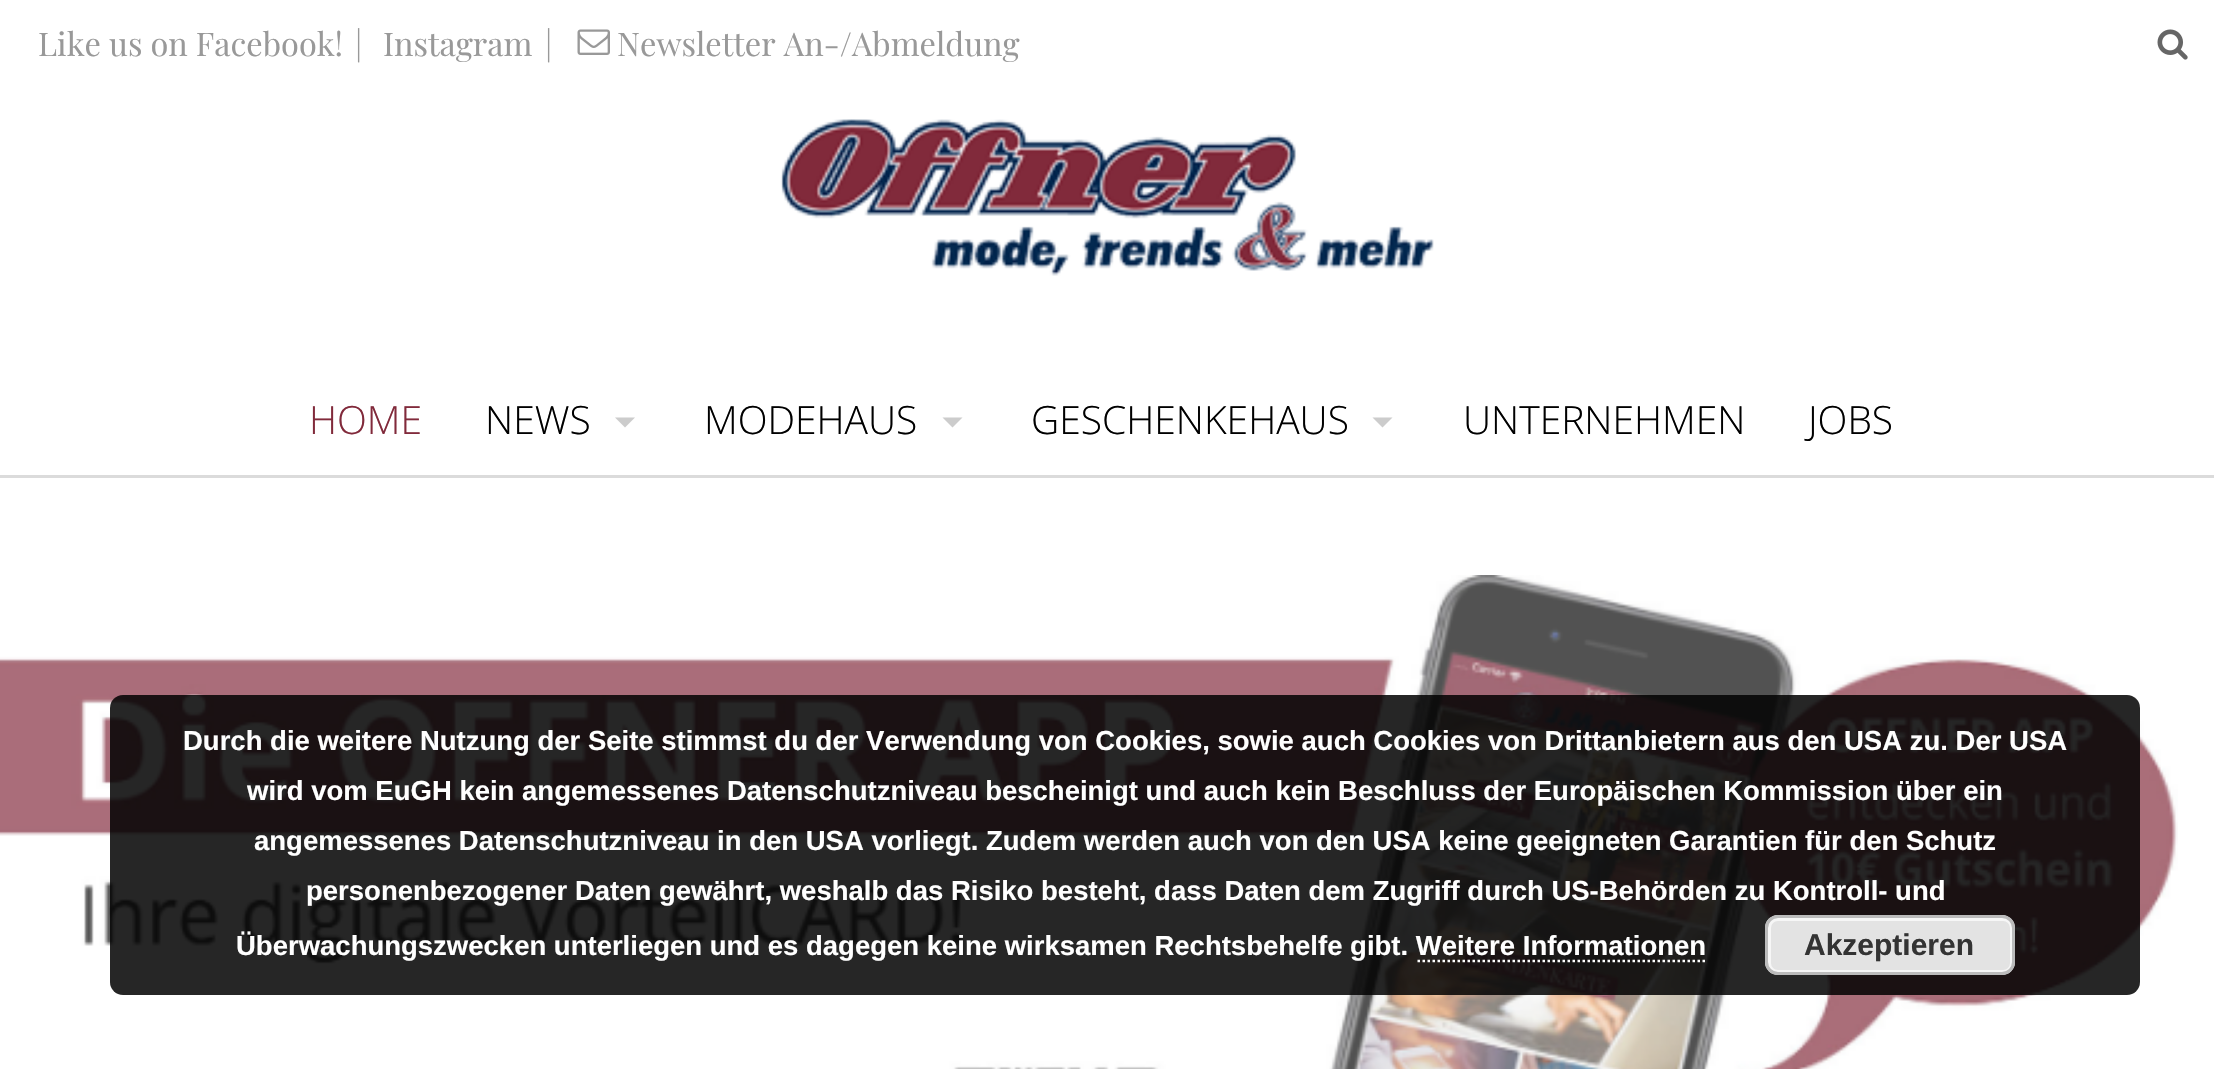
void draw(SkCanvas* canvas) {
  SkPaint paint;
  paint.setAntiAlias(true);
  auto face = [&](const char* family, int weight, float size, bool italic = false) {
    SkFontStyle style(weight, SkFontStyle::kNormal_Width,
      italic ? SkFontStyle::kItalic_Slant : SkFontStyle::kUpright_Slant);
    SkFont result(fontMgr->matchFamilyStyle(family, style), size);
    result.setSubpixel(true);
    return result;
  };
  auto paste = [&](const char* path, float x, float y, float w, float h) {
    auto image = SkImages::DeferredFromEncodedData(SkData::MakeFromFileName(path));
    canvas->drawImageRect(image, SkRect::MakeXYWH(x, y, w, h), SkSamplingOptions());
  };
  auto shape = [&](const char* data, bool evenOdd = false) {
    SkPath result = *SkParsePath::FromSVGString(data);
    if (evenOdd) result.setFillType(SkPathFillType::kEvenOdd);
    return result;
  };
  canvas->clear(0xffffffff);
  paste("img/1.png", 577, 29, 33, 26);
  paste("img/2.png", 2157, 29, 31, 31);
  paste("img/3.png", 780, 119, 654, 157);
  paint.setColor(0xffdbdbdb);
  canvas->drawRect(SkRect::MakeXYWH(0, 475, 2214, 3), paint);
  paint.setColor(0xffcccccc);
  canvas->drawPath(shape("M615 417.5H635L625 427.5Z"), paint);
  canvas->drawPath(shape("M942.5 417.5H962.5L952.5 427.5Z"), paint);
  canvas->drawPath(shape("M1372.5 417.5H1392.5L1382.5 427.5Z"), paint);
  paste("img/4.png", 0, 575, 2178, 494);
  paint.setColor(0xd9000000);
  canvas->drawRoundRect(SkRect::MakeXYWH(110, 695, 2030, 300), 13, 13, paint);
  paint.setColor(0xffe3e3e3);
  canvas->drawRoundRect(SkRect::MakeXYWH(1765, 915, 250, 60), 13, 13, paint);
  paint.setStroke(true);
  paint.setStrokeWidth(3);
  paint.setColor(0xfff6f6f6);
  canvas->drawRoundRect(SkRect::MakeXYWH(1769.5f, 919.5f, 242, 52), 8.5f, 8.5f, paint);
  paint.setColor(0xffbbbbbb);
  canvas->drawRoundRect(SkRect::MakeXYWH(1766.5f, 916.5f, 247, 57), 11.5f, 11.5f, paint);
  paint.setStrokeWidth(2.5f);
  paint.setColor(0xffffffff);
  paint.setPathEffect(SkDashPathEffect::Make({{2.5f, 2.5f}}, 0));
  canvas->drawPath(shape("M1417.5 961H1707.5"), paint);
  paint.setPathEffect(nullptr);
  auto f0 = face("Playfair Display", 400, 32.5f);
  paint.setStroke(false);
  paint.setColor(0xff999999);
  {
    const struct { const char* s; float x, y; } items[] = {
      {"Like us on Facebook!", 38, 56},
      {"|", 355, 56},
      {"Instagram", 383, 56},
      {"|", 545, 56},
      {"Newsletter An-/Abmeldung", 617, 56},
    };
    for (auto [s, x, y] : items) {
      canvas->drawString(s, x, y, f0, paint);
    }
  }
  auto f1 = face("Open Sans", 300, 39);
  paint.setColor(0xff812a3b);
  canvas->drawString("HOME", 309, 434, f1, paint);
  paint.setColor(0xff000000);
  {
    const struct { const char* s; float x, y; } items[] = {
      {"NEWS", 485, 434},
      {"MODEHAUS", 704, 434},
      {"GESCHENKEHAUS", 1031, 434},
      {"UNTERNEHMEN", 1463, 434},
      {"JOBS", 1808, 434},
    };
    for (auto [s, x, y] : items) {
      canvas->drawString(s, x, y, f1, paint);
    }
  }
  auto f2 = face("Liberation Sans", 700, 27.5f);
  paint.setColor(0xffffffff);
  {
    const struct { const char* s; float x, y; } items[] = {
      {"Durch die weitere Nutzung der Seite stimmst du der Verwendung von Cookies, sowie auch Cookies von Drittanbietern aus den USA zu. Der USA", 183, 750},
      {"wird vom EuGH kein angemessenes Datenschutzniveau bescheinigt und auch kein Beschluss der Europäischen Kommission über ein", 247, 800},
      {"angemessenes Datenschutzniveau in den USA vorliegt. Zudem werden auch von den USA keine geeigneten Garantien für den Schutz", 254, 850},
      {"personenbezogener Daten gewährt, weshalb das Risiko besteht, dass Daten dem Zugriff durch US-Behörden zu Kontroll- und", 306, 900},
      {"Überwachungszwecken unterliegen und es dagegen keine wirksamen Rechtsbehelfe gibt. Weitere Informationen", 236, 955},
    };
    for (auto [s, x, y] : items) {
      canvas->drawString(s, x, y, f2, paint);
    }
  }
  auto f3 = face("Liberation Sans", 700, 30);
  paint.setColor(0xff333333);
  canvas->drawString("Akzeptieren", 1804, 955, f3, paint);
}
